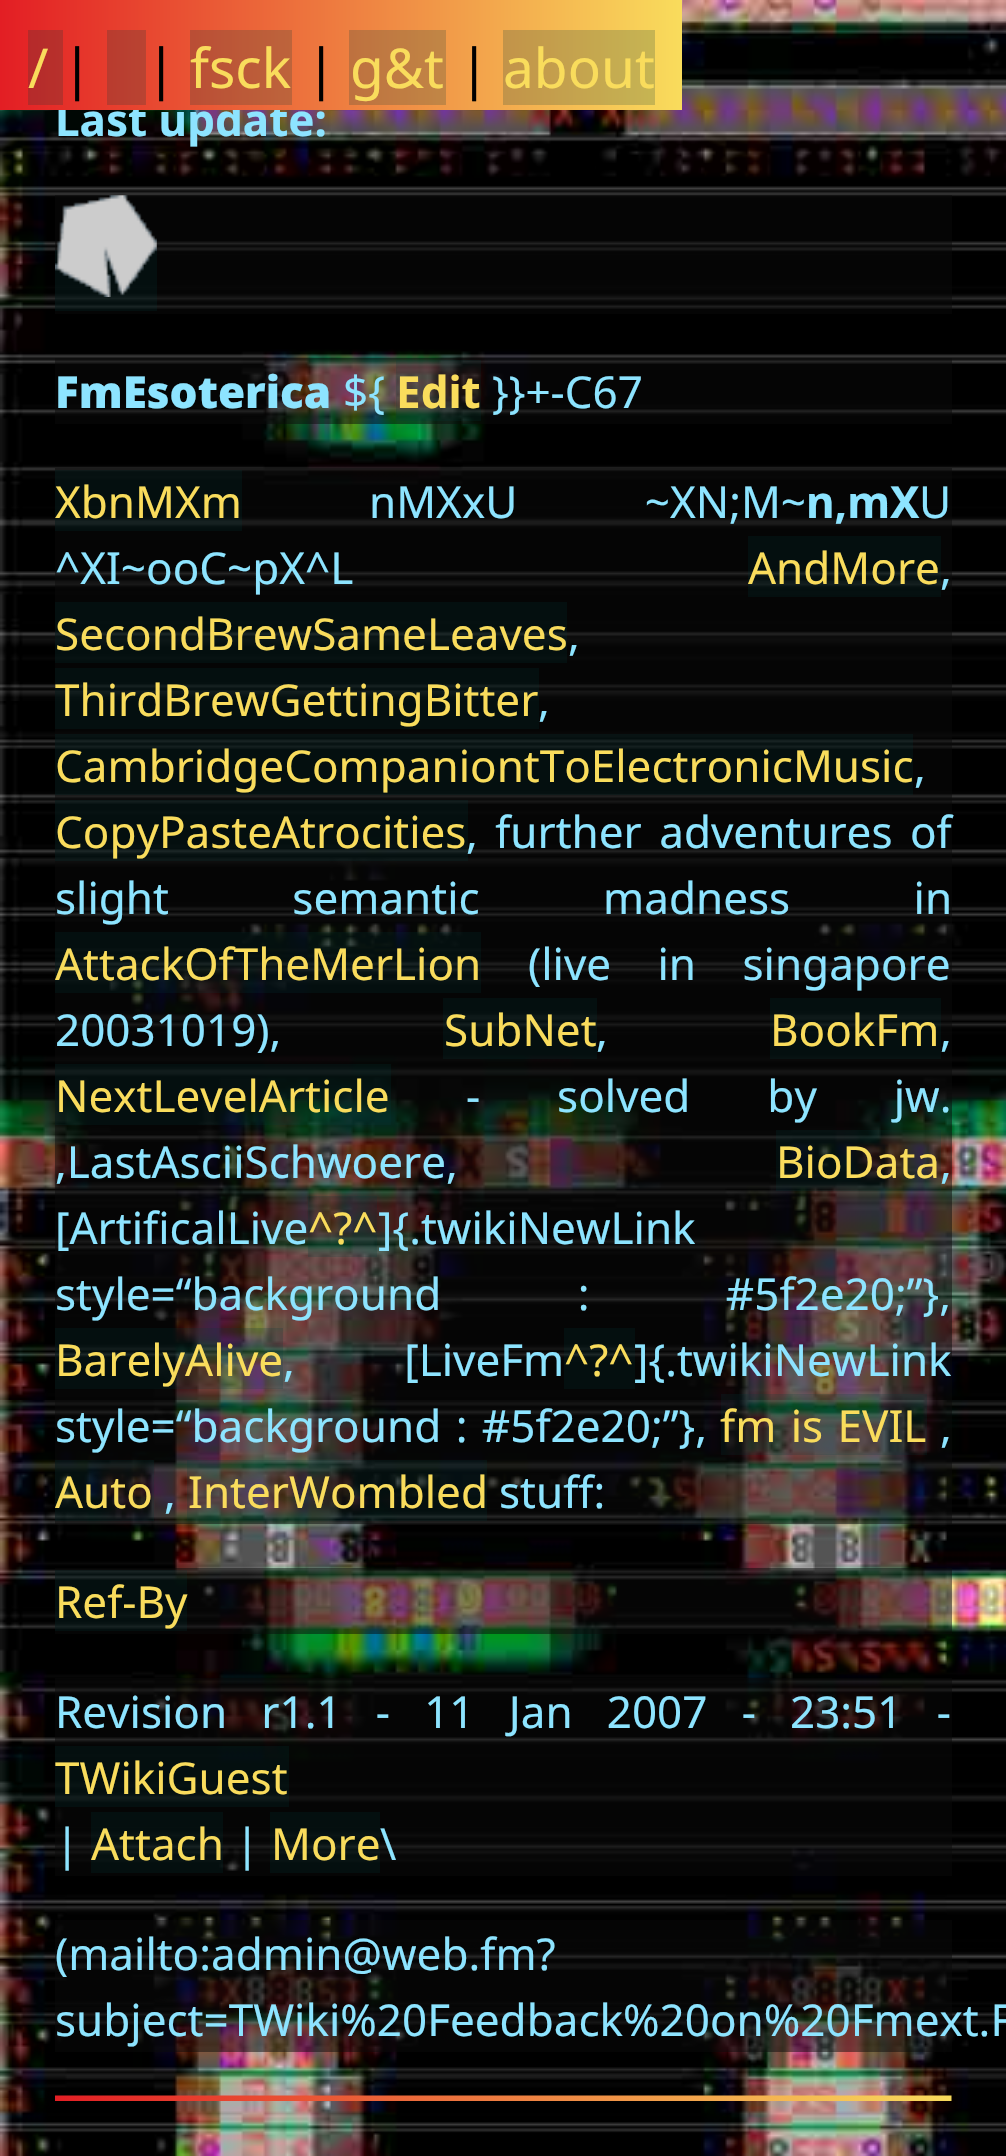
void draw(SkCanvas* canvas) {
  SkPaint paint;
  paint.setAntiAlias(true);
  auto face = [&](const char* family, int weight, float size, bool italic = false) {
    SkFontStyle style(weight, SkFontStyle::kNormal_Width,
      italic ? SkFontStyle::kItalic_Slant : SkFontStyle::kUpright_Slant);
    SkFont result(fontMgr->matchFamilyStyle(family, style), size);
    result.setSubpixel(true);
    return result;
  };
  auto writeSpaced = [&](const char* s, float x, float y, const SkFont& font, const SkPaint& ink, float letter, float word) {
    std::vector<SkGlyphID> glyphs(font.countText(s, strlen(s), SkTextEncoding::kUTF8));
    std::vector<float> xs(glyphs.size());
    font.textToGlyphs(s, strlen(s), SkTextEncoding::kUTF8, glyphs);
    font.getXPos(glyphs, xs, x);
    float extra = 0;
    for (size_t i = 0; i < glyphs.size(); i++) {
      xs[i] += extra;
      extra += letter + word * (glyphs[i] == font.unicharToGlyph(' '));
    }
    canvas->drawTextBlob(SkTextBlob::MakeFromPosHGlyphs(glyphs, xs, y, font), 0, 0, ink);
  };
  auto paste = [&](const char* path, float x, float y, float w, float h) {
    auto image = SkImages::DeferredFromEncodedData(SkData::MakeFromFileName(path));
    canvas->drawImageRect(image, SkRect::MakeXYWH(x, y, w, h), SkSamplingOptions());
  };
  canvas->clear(0xffffffff);
  paste("img/1.png", 0, 0, 1006, 2156);
  paint.setColor(0x800a0a0a);
  canvas->drawRect(SkRect::MakeXYWH(55, 195, 897, 119), paint);
  paint.setColor(0x33003737);
  canvas->drawRect(SkRect::MakeXYWH(55, 250, 102, 61), paint);
  paste("img/2.png", 55, 195, 102, 102);
  {
    const struct { float x, y, w, h; SkColor color; } items[] = {
      {55, 358, 897, 66, 0x800a0a0a},
      {396, 360, 85, 61, 0x33003737},
      {55, 468, 897, 1056, 0x800a0a0a},
      {55, 470, 187, 61, 0x33003737},
      {748, 536, 193, 61, 0x33003737},
      {55, 602, 512, 61, 0x33003737},
      {55, 668, 484, 61, 0x33003737},
      {55, 734, 858, 61, 0x33003737},
      {55, 800, 413, 61, 0x33003737},
      {55, 932, 426, 61, 0x33003737},
      {443, 998, 154, 61, 0x33003737},
      {770, 998, 171, 61, 0x33003737},
      {55, 1064, 336, 61, 0x33003737},
      {776, 1130, 165, 61, 0x33003737},
      {308, 1196, 69, 61, 0x33003737},
      {55, 1328, 228, 61, 0x33003737},
      {564, 1328, 71, 61, 0x33003737},
      {721, 1394, 206, 61, 0x33003737},
      {55, 1460, 99, 61, 0x33003737},
      {187, 1460, 300, 61, 0x33003737},
      {55, 1568, 897, 66, 0x800a0a0a},
      {55, 1570, 132, 61, 0x33003737},
      {55, 1678, 897, 198, 0x800a0a0a},
      {55, 1746, 234, 61, 0x33003737},
      {91, 1812, 132, 61, 0x33003737},
      {270, 1812, 110, 61, 0x33003737},
      {55, 1920, 897, 132, 0x800a0a0a},
    };
    for (auto [x, y, w, h, color] : items) {
      paint.setColor(color);
      canvas->drawRect(SkRect::MakeXYWH(x, y, w, h), paint);
    }
  }
  paste("img/3.png", 55, 2095, 897, 6);
  auto f0 = face("Noto Sans", 700, 44);
  paint.setColor(0xff8de4ff);
  canvas->drawString("Last update:", 55, 136, f0, paint);
  {
    const SkColor colors[] = {0xffe31e24, 0xfff9dc5c};
    const float stops[] = {0, 1};
    const SkPoint ends[] = {{0, 55}, {682, 55}};
    paint.setShader(SkGradientShader::MakeLinear(ends, colors, stops, 2, SkTileMode::kClamp));
    paint.setAlpha(255);
  }
  canvas->drawRect(SkRect::MakeXYWH(0, 0, 682, 110), paint);
  paint.setShader(nullptr);
  paint.setColor(0x33003737);
  canvas->drawRect(SkRect::MakeXYWH(503, 30, 152, 75), paint);
  auto f1 = face("Noto Sans", 400, 55);
  paint.setColor(0xfff9dc5c);
  canvas->drawString("about", 503, 88, f1, paint);
  paint.setColor(0xff000000);
  canvas->drawString("|", 459, 88, f1, paint);
  paint.setColor(0x33003737);
  canvas->drawRect(SkRect::MakeXYWH(349, 30, 97, 75), paint);
  paint.setColor(0xfff9dc5c);
  canvas->drawString("g&t", 350, 88, f1, paint);
  paint.setColor(0xff000000);
  canvas->drawString("|", 306, 88, f1, paint);
  paint.setColor(0x33003737);
  canvas->drawRect(SkRect::MakeXYWH(190, 30, 102, 75), paint);
  paint.setColor(0xfff9dc5c);
  canvas->drawString("fsck", 190, 88, f1, paint);
  paint.setColor(0xff000000);
  canvas->drawString("|", 146, 88, f1, paint);
  paint.setColor(0x33003737);
  canvas->drawRect(SkRect::MakeXYWH(107, 30, 39, 75), paint);
  paint.setColor(0xff000000);
  canvas->drawString("|", 62, 88, f1, paint);
  paint.setColor(0x33003737);
  canvas->drawRect(SkRect::MakeXYWH(28, 30, 35, 75), paint);
  paint.setColor(0xfff9dc5c);
  canvas->drawString("/", 28, 88, f1, paint);
  auto f2 = face("Noto Sans", 900, 44);
  paint.setColor(0xff8de4ff);
  canvas->drawString("FmEsoterica", 55, 408, f2, paint);
  auto f3 = face("Noto Sans", 400, 44);
  canvas->drawString("${", 343, 408, f3, paint);
  paint.setColor(0xfff9dc5c);
  canvas->drawString("Edit", 396, 408, f0, paint);
  paint.setColor(0xff8de4ff);
  canvas->drawString("}}+-C67", 492, 408, f3, paint);
  paint.setColor(0xfff9dc5c);
  canvas->drawString("XbnMXm", 55, 518, f3, paint);
  paint.setColor(0xff8de4ff);
  writeSpaced("nMXxU ~XN;M~", 369, 518, f3, paint, 0, 116);
  canvas->drawString("n,mX", 806, 518, f0, paint);
  canvas->drawString("U", 919, 518, f3, paint);
  canvas->drawString("^XI~ooC~pX^L", 55, 584, f3, paint);
  paint.setColor(0xfff9dc5c);
  canvas->drawString("AndMore", 748, 584, f3, paint);
  paint.setColor(0xff8de4ff);
  canvas->drawString(",", 940, 584, f3, paint);
  paint.setColor(0xfff9dc5c);
  canvas->drawString("SecondBrewSameLeaves", 55, 650, f3, paint);
  paint.setColor(0xff8de4ff);
  canvas->drawString(",", 568, 650, f3, paint);
  paint.setColor(0xfff9dc5c);
  canvas->drawString("ThirdBrewGettingBitter", 55, 716, f3, paint);
  paint.setColor(0xff8de4ff);
  canvas->drawString(",", 538, 716, f3, paint);
  paint.setColor(0xfff9dc5c);
  canvas->drawString("CambridgeCompaniontToElectronicMusic", 55, 782, f3, paint);
  paint.setColor(0xff8de4ff);
  canvas->drawString(",", 914, 782, f3, paint);
  paint.setColor(0xfff9dc5c);
  canvas->drawString("CopyPasteAtrocities", 55, 848, f3, paint);
  paint.setColor(0xff8de4ff);
  writeSpaced(", further adventures of", 466, 848, f3, paint, 0, 6);
  writeSpaced("slight semantic madness in", 55, 914, f3, paint, 0, 112);
  paint.setColor(0xfff9dc5c);
  canvas->drawString("AttackOfTheMerLion", 55, 980, f3, paint);
  paint.setColor(0xff8de4ff);
  writeSpaced("(live in singapore", 528, 980, f3, paint, 0, 35);
  canvas->drawString("20031019),", 55, 1046, f3, paint);
  paint.setColor(0xfff9dc5c);
  canvas->drawString("SubNet", 444, 1046, f3, paint);
  paint.setColor(0xff8de4ff);
  canvas->drawString(",", 596, 1046, f3, paint);
  paint.setColor(0xfff9dc5c);
  canvas->drawString("BookFm", 770, 1046, f3, paint);
  paint.setColor(0xff8de4ff);
  canvas->drawString(",", 940, 1046, f3, paint);
  paint.setColor(0xfff9dc5c);
  canvas->drawString("NextLevelArticle", 55, 1112, f3, paint);
  paint.setColor(0xff8de4ff);
  writeSpaced("- solved by jw.", 466, 1112, f3, paint, 0, 65.5f);
  canvas->drawString(",LastAsciiSchwoere,", 55, 1178, f3, paint);
  paint.setColor(0xfff9dc5c);
  canvas->drawString("BioData", 776, 1178, f3, paint);
  paint.setColor(0xff8de4ff);
  canvas->drawString(",", 940, 1178, f3, paint);
  canvas->drawString("[ArtificalLive", 55, 1244, f3, paint);
  paint.setColor(0xfff9dc5c);
  canvas->drawString("^?^", 308, 1244, f3, paint);
  paint.setColor(0xff8de4ff);
  canvas->drawString("]{.twikiNewLink", 378, 1244, f3, paint);
  writeSpaced("style=“background : #5f2e20;”},", 55, 1310, f3, paint, 0, 125);
  paint.setColor(0xfff9dc5c);
  canvas->drawString("BarelyAlive", 55, 1376, f3, paint);
  paint.setColor(0xff8de4ff);
  writeSpaced(", [LiveFm", 283, 1376, f3, paint, 0, 98);
  paint.setColor(0xfff9dc5c);
  canvas->drawString("^?^", 564, 1376, f3, paint);
  paint.setColor(0xff8de4ff);
  canvas->drawString("]{.twikiNewLink", 634, 1376, f3, paint);
  writeSpaced("style=“background : #5f2e20;”},", 55, 1442, f3, paint, 0, 3);
  paint.setColor(0xfff9dc5c);
  writeSpaced("fm is EVIL", 720, 1442, f3, paint, 0, 3);
  paint.setColor(0xff8de4ff);
  canvas->drawString(",", 940, 1442, f3, paint);
  paint.setColor(0xfff9dc5c);
  canvas->drawString("Auto", 55, 1508, f3, paint);
  paint.setColor(0xff8de4ff);
  canvas->drawString(",", 164, 1508, f3, paint);
  paint.setColor(0xfff9dc5c);
  canvas->drawString("InterWombled", 188, 1508, f3, paint);
  paint.setColor(0xff8de4ff);
  canvas->drawString("stuff:", 499, 1508, f3, paint);
  paint.setColor(0xfff9dc5c);
  canvas->drawString("Ref-By", 55, 1618, f3, paint);
  paint.setColor(0xff8de4ff);
  writeSpaced("Revision r1.1 - 11 Jan 2007 - 23:51 -", 55, 1728, f3, paint, 0, 22.75f);
  paint.setColor(0xfff9dc5c);
  canvas->drawString("TWikiGuest", 55, 1794, f3, paint);
  paint.setColor(0xff8de4ff);
  canvas->drawString("|", 55, 1860, f3, paint);
  paint.setColor(0xfff9dc5c);
  canvas->drawString("Attach", 91, 1860, f3, paint);
  paint.setColor(0xff8de4ff);
  canvas->drawString("|", 235, 1860, f3, paint);
  paint.setColor(0xfff9dc5c);
  canvas->drawString("More", 271, 1860, f3, paint);
  paint.setColor(0xff8de4ff);
  {
    const struct { const char* s; float x, y; } items[] = {
      {"\\", 380, 1860},
      {"(mailto:admin@web.fm?", 55, 1970},
      {"subject=TWiki%20Feedback%20on%20Fmext.F", 55, 2036},
    };
    for (auto [s, x, y] : items) {
      canvas->drawString(s, x, y, f3, paint);
    }
  }
}
